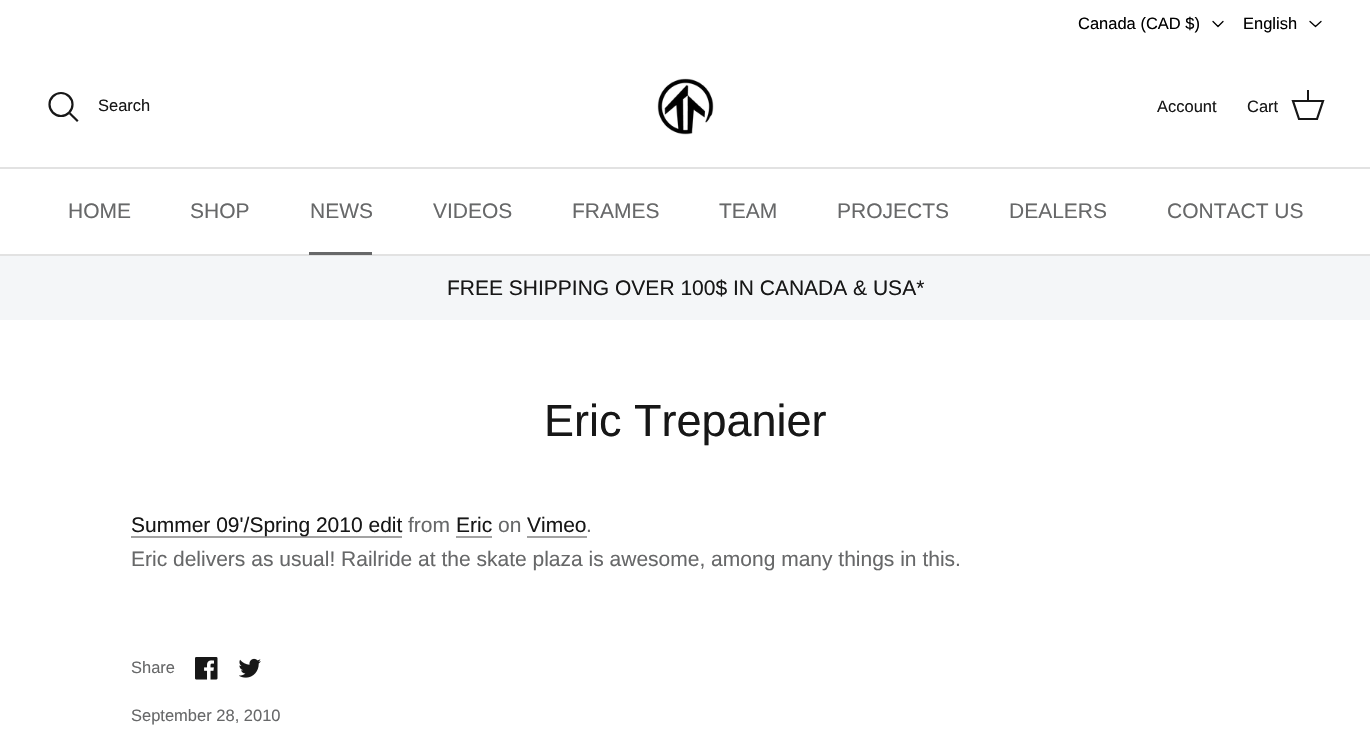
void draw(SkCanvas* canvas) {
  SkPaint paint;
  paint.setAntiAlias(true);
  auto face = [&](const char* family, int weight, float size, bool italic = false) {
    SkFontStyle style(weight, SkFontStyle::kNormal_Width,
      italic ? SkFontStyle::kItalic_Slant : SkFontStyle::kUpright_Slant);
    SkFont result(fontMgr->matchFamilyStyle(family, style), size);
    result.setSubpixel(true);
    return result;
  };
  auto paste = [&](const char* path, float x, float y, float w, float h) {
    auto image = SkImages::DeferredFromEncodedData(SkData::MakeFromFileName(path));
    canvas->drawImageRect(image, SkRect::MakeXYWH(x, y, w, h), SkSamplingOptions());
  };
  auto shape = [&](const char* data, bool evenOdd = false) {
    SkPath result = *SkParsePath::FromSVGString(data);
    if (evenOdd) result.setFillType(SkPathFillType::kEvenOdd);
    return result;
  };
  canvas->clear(0xffffffff);
  paint.setStroke(true);
  paint.setStrokeWidth(1.3f);
  paint.setStrokeCap(SkPaint::kRound_Cap);
  paint.setStrokeJoin(SkPaint::kRound_Join);
  paint.setColor(0xff000000);
  canvas->drawPath(shape("M1213 21.5L1218 26.5L1223 21.5"), paint);
  canvas->drawPath(shape("M1310 21.5L1315.5 26.5L1321 21.5"), paint);
  paint.setStroke(false);
  paint.setColor(0xffe2e2e2);
  canvas->drawRect(SkRect::MakeXYWH(0, 167, 1370, 2), paint);
  paint.setStroke(true);
  paint.setStrokeWidth(2.2f);
  paint.setStrokeCap(SkPaint::kButt_Cap);
  paint.setStrokeJoin(SkPaint::kMiter_Join);
  paint.setColor(0xff171717);
  canvas->drawCircle(61, 104.5f, 11.5f, paint);
  paint.setStrokeCap(SkPaint::kSquare_Cap);
  canvas->drawPath(shape("M70.5 114L77 120.5"), paint);
  paste("img/1.png", 657, 78, 57, 57);
  paint.setStrokeCap(SkPaint::kButt_Cap);
  canvas->drawPath(shape("M1293 101H1323L1317 119H1299Z"), paint);
  paint.setStroke(false);
  {
    const struct { float x, y, w, h; SkColor color; } items[] = {
      {1307, 90, 2, 12, 0xff171717},
      {0, 254, 1370, 2, 0xffe2e2e2},
      {309, 252, 63, 3, 0xff676869},
      {0, 256, 1370, 64, 0xfff4f6f8},
      {131, 536, 271, 2, 0xffa2a2a2},
      {456, 536, 36, 2, 0xffa2a2a2},
      {527, 536, 60, 2, 0xffa2a2a2},
    };
    for (auto [x, y, w, h, color] : items) {
      paint.setColor(color);
      canvas->drawRect(SkRect::MakeXYWH(x, y, w, h), paint);
    }
  }
  paste("img/2.png", 195, 657, 23, 23);
  paste("img/3.png", 239, 658, 22, 20);
  auto f0 = face("Arimo", 400, 16.5f);
  paint.setColor(0xff000000);
  canvas->drawString("Canada (CAD $)", 1078, 29, f0, paint);
  canvas->drawString("English", 1243, 29, f0, paint);
  paint.setColor(0xff171717);
  {
    const struct { const char* s; float x, y; } items[] = {
      {"Search", 98, 111},
      {"Account", 1157, 112},
      {"Cart", 1247, 112},
    };
    for (auto [s, x, y] : items) {
      canvas->drawString(s, x, y, f0, paint);
    }
  }
  auto f1 = face("Arimo", 400, 21);
  paint.setColor(0xff676869);
  {
    const struct { const char* s; float x, y; } items[] = {
      {"HOME", 68, 218},
      {"SHOP", 190, 218},
      {"NEWS", 310, 218},
      {"VIDEOS", 433, 218},
      {"FRAMES", 572, 218},
      {"TEAM", 719, 218},
      {"PROJECTS", 837, 218},
      {"DEALERS", 1009, 218},
      {"CONTACT US", 1167, 218},
    };
    for (auto [s, x, y] : items) {
      canvas->drawString(s, x, y, f1, paint);
    }
  }
  paint.setColor(0xff171717);
  canvas->drawString("FREE SHIPPING OVER 100$ IN CANADA & USA*", 447, 295, f1, paint);
  auto f2 = face("Arimo", 400, 45);
  canvas->drawString("Eric Trepanier", 544, 436, f2, paint);
  canvas->drawString("Summer 09'/Spring 2010 edit", 131, 532, f1, paint);
  paint.setColor(0xff676869);
  canvas->drawString("from", 408, 532, f1, paint);
  paint.setColor(0xff171717);
  canvas->drawString("Eric", 456, 532, f1, paint);
  paint.setColor(0xff676869);
  canvas->drawString("on", 498, 532, f1, paint);
  paint.setColor(0xff171717);
  canvas->drawString("Vimeo", 527, 532, f1, paint);
  paint.setColor(0xff676869);
  canvas->drawString(".", 586, 532, f1, paint);
  canvas->drawString("Eric delivers as usual! Railride at the skate plaza is awesome, among many things in this.", 131, 566, f1, paint);
  canvas->drawString("Share", 131, 673, f0, paint);
  canvas->drawString("September 28, 2010", 131, 721, f0, paint);
}
